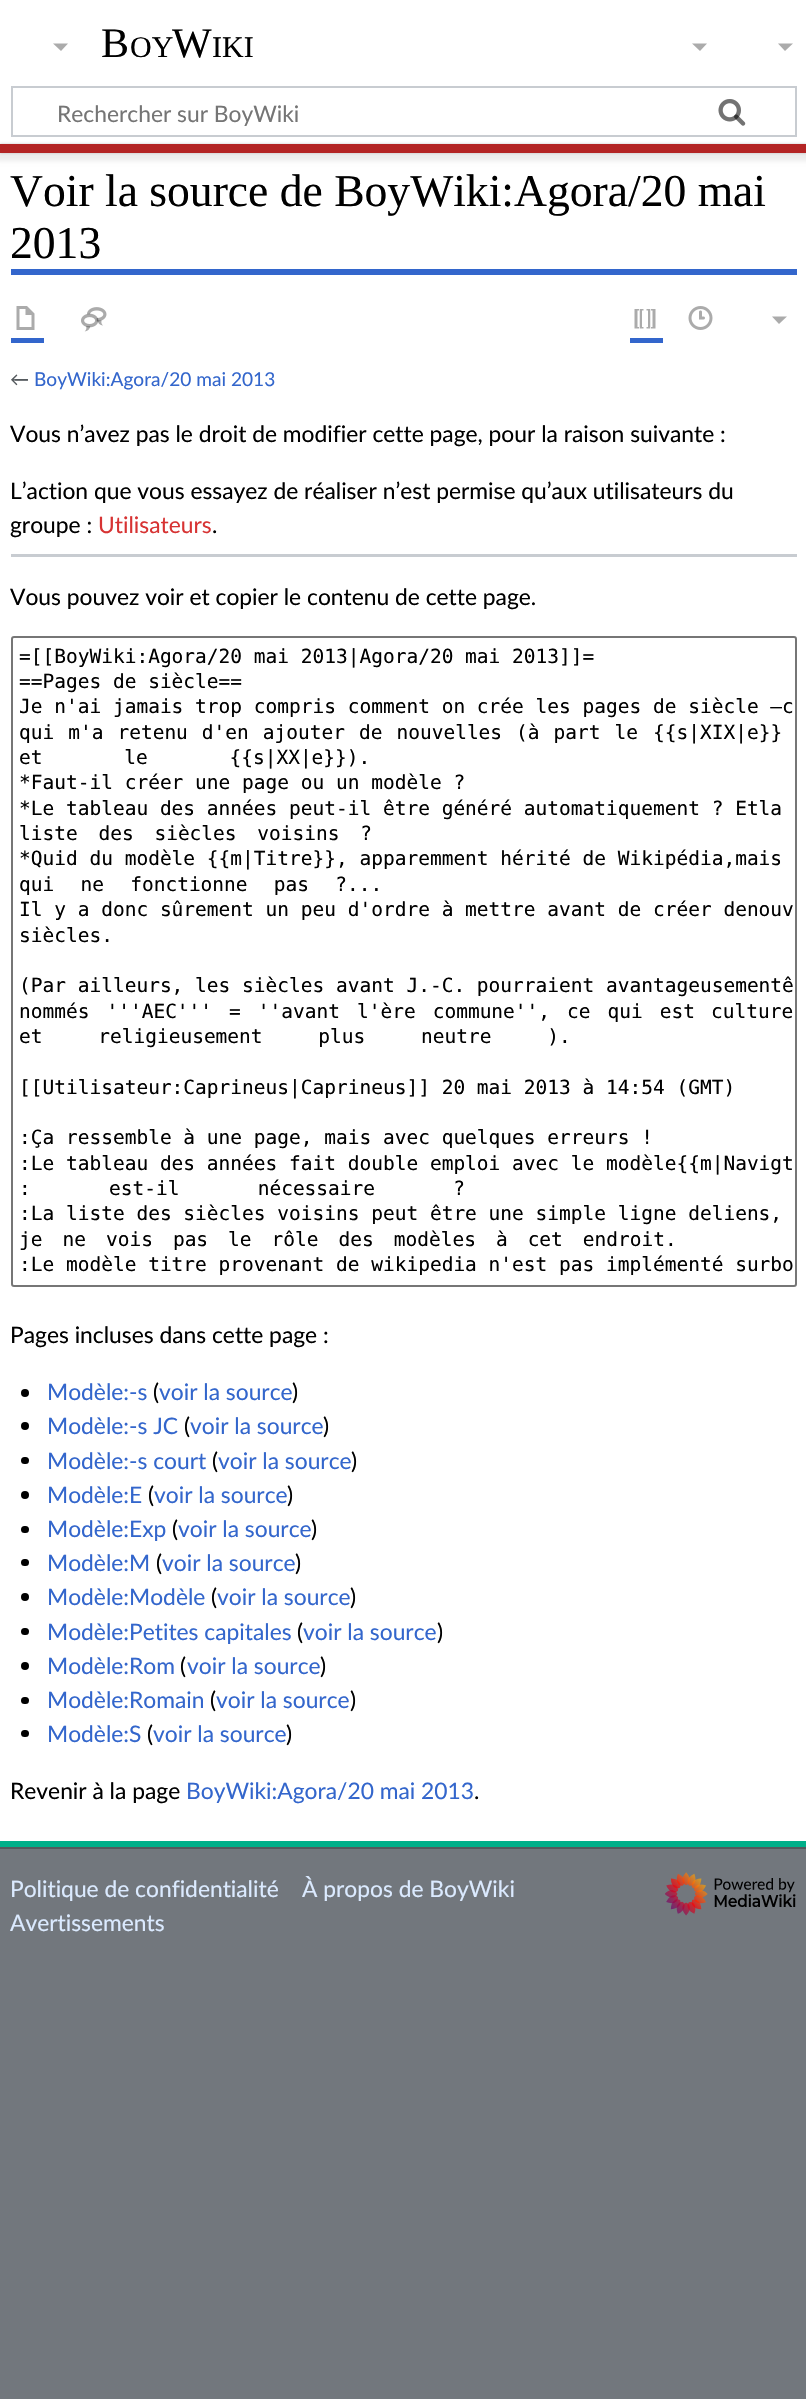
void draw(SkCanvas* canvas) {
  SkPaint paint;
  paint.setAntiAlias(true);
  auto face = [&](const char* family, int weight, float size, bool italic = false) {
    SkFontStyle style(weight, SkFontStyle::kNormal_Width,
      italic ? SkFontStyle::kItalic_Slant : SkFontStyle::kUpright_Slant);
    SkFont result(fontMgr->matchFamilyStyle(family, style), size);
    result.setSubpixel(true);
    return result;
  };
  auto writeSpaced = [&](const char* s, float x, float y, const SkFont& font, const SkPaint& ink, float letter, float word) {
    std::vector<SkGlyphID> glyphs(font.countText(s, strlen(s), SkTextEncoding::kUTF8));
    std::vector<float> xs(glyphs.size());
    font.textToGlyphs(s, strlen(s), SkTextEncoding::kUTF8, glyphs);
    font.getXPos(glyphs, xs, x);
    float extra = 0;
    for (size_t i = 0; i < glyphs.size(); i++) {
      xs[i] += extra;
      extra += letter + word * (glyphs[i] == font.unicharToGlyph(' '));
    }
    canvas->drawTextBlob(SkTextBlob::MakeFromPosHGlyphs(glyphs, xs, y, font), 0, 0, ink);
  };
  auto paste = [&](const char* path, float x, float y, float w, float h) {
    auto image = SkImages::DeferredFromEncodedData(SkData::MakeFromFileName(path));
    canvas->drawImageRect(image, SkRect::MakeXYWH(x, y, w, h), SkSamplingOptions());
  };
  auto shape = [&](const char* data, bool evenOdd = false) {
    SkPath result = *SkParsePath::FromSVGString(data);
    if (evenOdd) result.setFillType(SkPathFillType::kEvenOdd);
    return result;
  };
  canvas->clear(0xff72777d);
  paint.setColor(0xffffffff);
  canvas->drawRect(SkRect::MakeXYWH(0, 0, 806, 144), paint);
  paint.setColor(0xffababab);
  canvas->drawPath(shape("M793 43.5L785 51L778 43.5Z"), paint);
  paint.setStroke(true);
  paint.setStrokeWidth(2);
  paint.setColor(0xffc8ccd1);
  canvas->drawRect(SkRect::MakeXYWH(12, 87, 784, 49), paint);
  paste("img/1.png", 718, 99, 28, 27);
  paste("img/2.png", 718, 99, 28, 27);
  paint.setStroke(false);
  paint.setColor(0xffffffff);
  canvas->drawRect(SkRect::MakeXYWH(0, 153, 806, 1688), paint);
  paint.setColor(0x33000000);
  paint.setMaskFilter(SkMaskFilter::MakeBlur(kNormal_SkBlurStyle, 1.5f));
  canvas->drawRect(SkRect::MakeXYWH(0, 144, 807, 9), paint);
  paint.setMaskFilter(nullptr);
  paint.setColor(0x12000000);
  paint.setMaskFilter(SkMaskFilter::MakeBlur(kNormal_SkBlurStyle, 2));
  canvas->drawRect(SkRect::MakeXYWH(-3, 146, 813, 15), paint);
  paint.setMaskFilter(nullptr);
  paint.setColor(0xffb32424);
  canvas->drawRect(SkRect::MakeXYWH(0, 144, 806, 9), paint);
  paint.setColor(0xff00af89);
  canvas->drawRect(SkRect::MakeXYWH(0, 1841, 806, 6), paint);
  paint.setColor(0xffababab);
  canvas->drawPath(shape("M68 43.5L61 51L53 43.5Z"), paint);
  canvas->drawPath(shape("M707 43.5L700 51L692 43.5Z"), paint);
  paint.setColor(0xff3366cc);
  canvas->drawRect(SkRect::MakeXYWH(11, 269, 786, 6), paint);
  canvas->drawRect(SkRect::MakeXYWH(11, 338, 33, 5), paint);
  paste("img/3.png", 16, 306, 19, 24);
  paste("img/4.png", 81, 307, 26, 25);
  canvas->drawRect(SkRect::MakeXYWH(630, 338, 33, 5), paint);
  paste("img/5.png", 634, 309, 22, 20);
  paste("img/6.png", 688, 306, 25, 24);
  paint.setColor(0xffababab);
  canvas->drawPath(shape("M787 316.5L779 324L772 316.5Z"), paint);
  paint.setColor(0xffc8ccd1);
  canvas->drawRect(SkRect::MakeXYWH(11, 554, 786, 3), paint);
  paint.setStroke(true);
  paint.setColor(0xff767676);
  canvas->drawRoundRect(SkRect::MakeXYWH(12, 637, 784, 649), 2, 2, paint);
  paint.setStroke(false);
  paint.setColor(0xff000000);
  canvas->drawCircle(25, 1393, 4, paint);
  canvas->drawCircle(25, 1426, 4, paint);
  canvas->drawRoundRect(SkRect::MakeXYWH(21, 1457, 8, 7), 3.5f, 3.5f, paint);
  canvas->drawCircle(25, 1495, 4, paint);
  canvas->drawRoundRect(SkRect::MakeXYWH(21, 1526, 8, 7), 3.5f, 3.5f, paint);
  canvas->drawRoundRect(SkRect::MakeXYWH(21, 1559, 8, 7), 3.5f, 3.5f, paint);
  canvas->drawCircle(25, 1597, 4, paint);
  canvas->drawRoundRect(SkRect::MakeXYWH(21, 1628, 8, 7), 3.5f, 3.5f, paint);
  canvas->drawCircle(25, 1666, 4, paint);
  canvas->drawRoundRect(SkRect::MakeXYWH(21, 1697, 8, 7), 3.5f, 3.5f, paint);
  canvas->drawRoundRect(SkRect::MakeXYWH(21, 1730, 8, 7), 3.5f, 3.5f, paint);
  paint.setColor(0xff54595d);
  canvas->drawRect(SkRect::MakeXYWH(0, 1847, 806, 2), paint);
  paste("img/7.png", 665, 1872, 131, 44);
  auto f0 = face("Liberation Serif", 400, 42);
  paint.setColor(0xff000000);
  canvas->drawString("B", 101, 57, f0, paint);
  auto f1 = face("Liberation Serif", 400, 30);
  canvas->drawString("OY", 130, 57, f1, paint);
  canvas->drawString("W", 172, 57, f0, paint);
  canvas->drawString("IKI", 212, 57, f1, paint);
  auto f2 = face("Lato", 400, 22.8f);
  paint.setColor(0xff757575);
  canvas->drawString("Rechercher sur BoyWiki", 57, 122, f2, paint);
  auto f3 = face("Liberation Serif", 400, 45.6f);
  paint.setColor(0xff000000);
  canvas->drawString("Voir la source de BoyWiki:Agora/20 mai", 10, 206, f3, paint);
  canvas->drawString("2013", 10, 258, f3, paint);
  auto f4 = face("Lato", 400, 19.1f);
  paint.setColor(0xff54595d);
  canvas->drawString("←", 10, 386, f4, paint);
  paint.setColor(0xff3366cc);
  canvas->drawString("BoyWiki:Agora/20 mai 2013", 34, 386, f4, paint);
  paint.setColor(0xff000000);
  {
    const struct { const char* s; float x, y; } items[] = {
      {"Vous n’avez pas le droit de modifier cette page, pour la raison suivante :", 10, 442},
      {"L’action que vous essayez de réaliser n’est permise qu’aux utilisateurs du", 10, 499},
      {"groupe :", 10, 533},
    };
    for (auto [s, x, y] : items) {
      canvas->drawString(s, x, y, f2, paint);
    }
  }
  paint.setColor(0xffd73333);
  canvas->drawString("Utilisateurs", 98, 533, f2, paint);
  paint.setColor(0xff000000);
  canvas->drawString(".", 212, 533, f2, paint);
  canvas->drawString("Vous pouvez voir et copier le contenu de cette page.", 10, 605, f2, paint);
  auto f5 = face("DejaVu Sans Mono", 400, 19.5f);
  {
    const struct { const char* s; float x, y; } items[] = {
      {"=[[BoyWiki:Agora/20 mai 2013|Agora/20 mai 2013]]=", 19, 663},
      {"==Pages de siècle==", 19, 688},
      {"Je n'ai jamais trop compris comment on crée les pages de siècle —c", 19, 713},
    };
    for (auto [s, x, y] : items) {
      canvas->drawString(s, x, y, f5, paint);
    }
  }
  writeSpaced("qui m'a retenu d'en ajouter de nouvelles (à part le", 19, 739, f5, paint, 0, 2.25f);
  canvas->drawString("{{s|XIX|e}}", 653, 739, f5, paint);
  writeSpaced("et le {{s|XX|e}}).", 19, 764, f5, paint, 0, 70);
  canvas->drawString("*Faut-il créer une page ou un modèle ?", 19, 789, f5, paint);
  canvas->drawString("*Le tableau des années peut-il être généré automatiquement ? Etla", 19, 815, f5, paint);
  writeSpaced("liste des siècles voisins ?", 19, 840, f5, paint, 0, 9);
  canvas->drawString("*Quid du modèle {{m|Titre}}, apparemment hérité de Wikipédia,mais", 19, 865, f5, paint);
  writeSpaced("qui ne fonctionne pas ?...", 19, 891, f5, paint, 0, 14.5f);
  {
    const struct { const char* s; float x, y; } items[] = {
      {"Il y a donc sûrement un peu d'ordre à mettre avant de créer denouv", 19, 916},
      {"siècles.", 19, 942},
      {"(Par ailleurs, les siècles avant J.-C. pourraient avantageusementê", 19, 992},
    };
    for (auto [s, x, y] : items) {
      canvas->drawString(s, x, y, f5, paint);
    }
  }
  writeSpaced("nommés '''AEC''' = ''avant l'ère commune'', ce qui est", 19, 1018, f5, paint, 0, 5.25f);
  canvas->drawString("culture", 711, 1018, f5, paint);
  writeSpaced("et religieusement plus neutre ).", 19, 1043, f5, paint, 0, 44);
  {
    const struct { const char* s; float x, y; } items[] = {
      {"[[Utilisateur:Caprineus|Caprineus]] 20 mai 2013 à 14:54 (GMT)", 19, 1094},
      {":Ça ressemble à une page, mais avec quelques erreurs !", 19, 1144},
      {":Le tableau des années fait double emploi avec le modèle{{m|Navigt", 19, 1170},
    };
    for (auto [s, x, y] : items) {
      canvas->drawString(s, x, y, f5, paint);
    }
  }
  writeSpaced(": est-il nécessaire ?", 19, 1195, f5, paint, 0, 66.5f);
  canvas->drawString(":La liste des siècles voisins peut être une simple ligne deliens,", 19, 1220, f5, paint);
  writeSpaced("je ne vois pas le rôle des modèles à cet endroit.", 19, 1246, f5, paint, 0, 8.25f);
  canvas->drawString(":Le modèle titre provenant de wikipedia n'est pas implémenté surbo", 19, 1271, f5, paint);
  canvas->drawString("Pages incluses dans cette page :", 10, 1343, f2, paint);
  paint.setColor(0xff3366cc);
  canvas->drawString("Modèle:-s", 47, 1400, f2, paint);
  paint.setColor(0xff000000);
  canvas->drawString("(", 153, 1400, f2, paint);
  paint.setColor(0xff3366cc);
  canvas->drawString("voir la source", 159, 1400, f2, paint);
  paint.setColor(0xff000000);
  canvas->drawString(")", 292, 1400, f2, paint);
  paint.setColor(0xff3366cc);
  canvas->drawString("Modèle:-s JC", 47, 1434, f2, paint);
  paint.setColor(0xff000000);
  canvas->drawString("(", 184, 1434, f2, paint);
  paint.setColor(0xff3366cc);
  canvas->drawString("voir la source", 190, 1434, f2, paint);
  paint.setColor(0xff000000);
  canvas->drawString(")", 323, 1434, f2, paint);
  paint.setColor(0xff3366cc);
  canvas->drawString("Modèle:-s court", 47, 1469, f2, paint);
  paint.setColor(0xff000000);
  canvas->drawString("(", 212, 1469, f2, paint);
  paint.setColor(0xff3366cc);
  canvas->drawString("voir la source", 218, 1469, f2, paint);
  paint.setColor(0xff000000);
  canvas->drawString(")", 351, 1469, f2, paint);
  paint.setColor(0xff3366cc);
  canvas->drawString("Modèle:E", 47, 1503, f2, paint);
  paint.setColor(0xff000000);
  canvas->drawString("(", 148, 1503, f2, paint);
  paint.setColor(0xff3366cc);
  canvas->drawString("voir la source", 154, 1503, f2, paint);
  paint.setColor(0xff000000);
  canvas->drawString(")", 287, 1503, f2, paint);
  paint.setColor(0xff3366cc);
  canvas->drawString("Modèle:Exp", 47, 1537, f2, paint);
  paint.setColor(0xff000000);
  canvas->drawString("(", 172, 1537, f2, paint);
  paint.setColor(0xff3366cc);
  canvas->drawString("voir la source", 178, 1537, f2, paint);
  paint.setColor(0xff000000);
  canvas->drawString(")", 311, 1537, f2, paint);
  paint.setColor(0xff3366cc);
  canvas->drawString("Modèle:M", 47, 1571, f2, paint);
  paint.setColor(0xff000000);
  canvas->drawString("(", 156, 1571, f2, paint);
  paint.setColor(0xff3366cc);
  canvas->drawString("voir la source", 162, 1571, f2, paint);
  paint.setColor(0xff000000);
  canvas->drawString(")", 295, 1571, f2, paint);
  paint.setColor(0xff3366cc);
  canvas->drawString("Modèle:Modèle", 47, 1605, f2, paint);
  paint.setColor(0xff000000);
  canvas->drawString("(", 211, 1605, f2, paint);
  paint.setColor(0xff3366cc);
  canvas->drawString("voir la source", 217, 1605, f2, paint);
  paint.setColor(0xff000000);
  canvas->drawString(")", 350, 1605, f2, paint);
  paint.setColor(0xff3366cc);
  canvas->drawString("Modèle:Petites capitales", 47, 1640, f2, paint);
  paint.setColor(0xff000000);
  canvas->drawString("(", 297, 1640, f2, paint);
  paint.setColor(0xff3366cc);
  canvas->drawString("voir la source", 303, 1640, f2, paint);
  paint.setColor(0xff000000);
  canvas->drawString(")", 437, 1640, f2, paint);
  paint.setColor(0xff3366cc);
  canvas->drawString("Modèle:Rom", 47, 1674, f2, paint);
  paint.setColor(0xff000000);
  canvas->drawString("(", 180, 1674, f2, paint);
  paint.setColor(0xff3366cc);
  canvas->drawString("voir la source", 187, 1674, f2, paint);
  paint.setColor(0xff000000);
  canvas->drawString(")", 320, 1674, f2, paint);
  paint.setColor(0xff3366cc);
  canvas->drawString("Modèle:Romain", 47, 1708, f2, paint);
  paint.setColor(0xff000000);
  canvas->drawString("(", 210, 1708, f2, paint);
  paint.setColor(0xff3366cc);
  canvas->drawString("voir la source", 216, 1708, f2, paint);
  paint.setColor(0xff000000);
  canvas->drawString(")", 350, 1708, f2, paint);
  paint.setColor(0xff3366cc);
  canvas->drawString("Modèle:S", 47, 1742, f2, paint);
  paint.setColor(0xff000000);
  canvas->drawString("(", 147, 1742, f2, paint);
  paint.setColor(0xff3366cc);
  canvas->drawString("voir la source", 153, 1742, f2, paint);
  paint.setColor(0xff000000);
  canvas->drawString(")", 286, 1742, f2, paint);
  canvas->drawString("Revenir à la page", 10, 1799, f2, paint);
  paint.setColor(0xff3366cc);
  canvas->drawString("BoyWiki:Agora/20 mai 2013", 186, 1799, f2, paint);
  paint.setColor(0xff000000);
  canvas->drawString(".", 474, 1799, f2, paint);
  paint.setColor(0xffdbeaff);
  {
    const struct { const char* s; float x, y; } items[] = {
      {"Politique de confidentialité", 10, 1897},
      {"À propos de BoyWiki", 302, 1897},
      {"Avertissements", 10, 1931},
    };
    for (auto [s, x, y] : items) {
      canvas->drawString(s, x, y, f2, paint);
    }
  }
}
